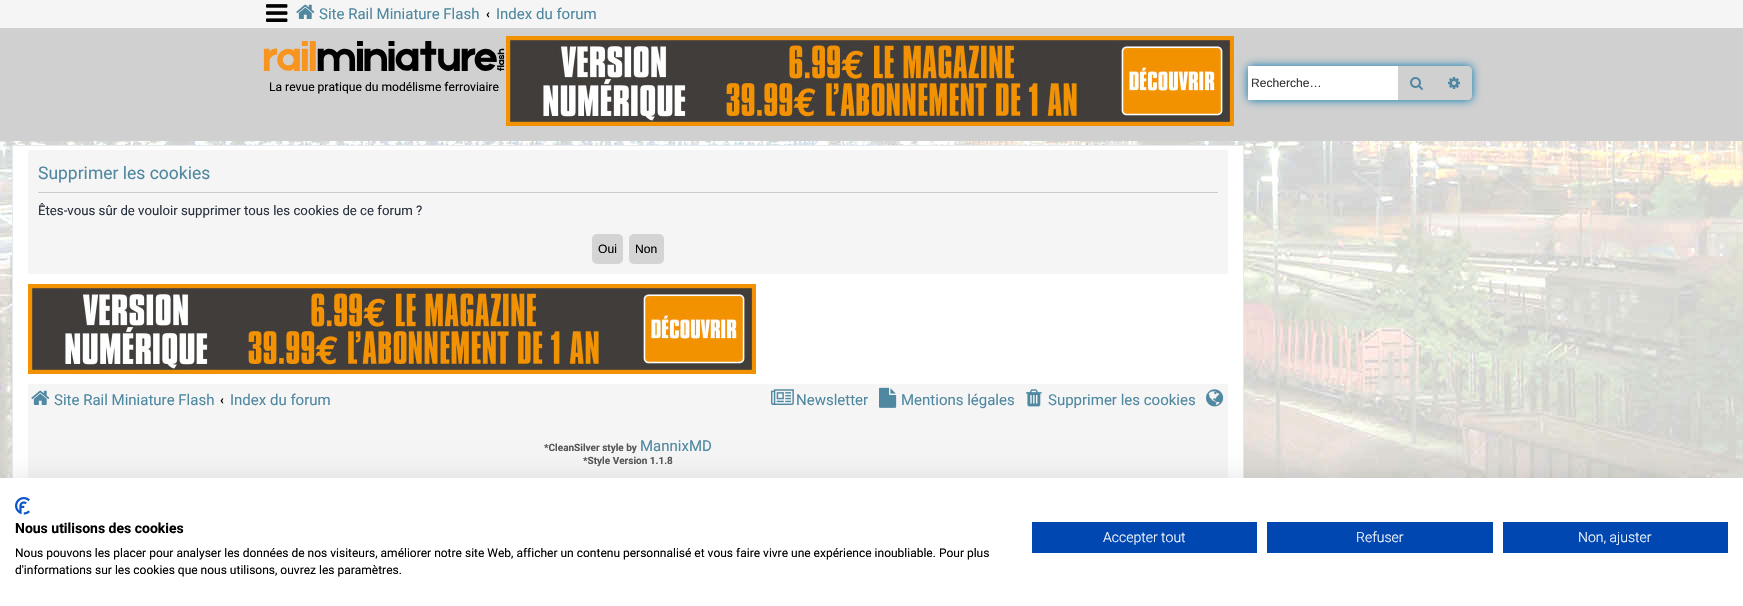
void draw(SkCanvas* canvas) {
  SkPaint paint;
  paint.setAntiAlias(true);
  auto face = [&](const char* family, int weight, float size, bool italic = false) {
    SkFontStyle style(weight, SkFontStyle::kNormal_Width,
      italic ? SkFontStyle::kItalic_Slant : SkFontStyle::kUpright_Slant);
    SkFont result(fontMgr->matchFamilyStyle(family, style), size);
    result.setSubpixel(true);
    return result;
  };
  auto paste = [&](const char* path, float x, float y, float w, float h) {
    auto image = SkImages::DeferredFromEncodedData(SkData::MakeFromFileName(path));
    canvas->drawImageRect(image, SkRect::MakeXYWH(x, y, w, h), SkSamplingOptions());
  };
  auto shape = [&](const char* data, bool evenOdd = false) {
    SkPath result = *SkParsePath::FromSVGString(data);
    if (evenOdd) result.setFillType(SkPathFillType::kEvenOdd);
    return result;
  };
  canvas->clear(0xffffffff);
  paste("img/1.png", 0, 141, 1743, 337);
  paint.setColor(0xfff5f5f5);
  canvas->drawRect(SkRect::MakeXYWH(0, 0, 1743, 28), paint);
  paste("img/2.png", 266, 4, 22, 18);
  paste("img/3.png", 296, 4, 19, 15);
  paint.setColor(0xffd0d0d0);
  canvas->drawRect(SkRect::MakeXYWH(0, 28, 1743, 113), paint);
  paste("img/4.png", 263, 41, 242, 30);
  paste("img/5.png", 506, 36, 728, 90);
  canvas->save();
  canvas->clipPath(shape("M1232 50H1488V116H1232ZM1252 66H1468C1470 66 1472 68 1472 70V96C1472 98 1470 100 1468 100H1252C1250 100 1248 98 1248 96V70C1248 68 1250 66 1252 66Z", true), true);
  paint.setColor(0xff0075b0);
  paint.setMaskFilter(SkMaskFilter::MakeBlur(kNormal_SkBlurStyle, 5));
  canvas->drawRoundRect(SkRect::MakeXYWH(1248, 66, 224, 34), 4, 4, paint);
  paint.setMaskFilter(nullptr);
  canvas->restore();
  paint.setColor(0xffffffff);
  canvas->drawRect(SkRect::MakeXYWH(1248, 66, 150, 34), paint);
  paste("img/6.png", 1410, 77, 13, 13);
  paste("img/7.png", 1448, 77, 12, 12);
  canvas->drawRect(SkRect::MakeXYWH(13, 146, 1230, 332), paint);
  paint.setStroke(true);
  paint.setStrokeWidth(1);
  paint.setColor(0xffe6e9ed);
  canvas->drawRect(SkRect::MakeXYWH(12.5f, 145.5f, 1231, 412), paint);
  paint.setStroke(false);
  paint.setColor(0xfff5f5f5);
  canvas->drawRect(SkRect::MakeXYWH(28, 150, 1200, 124), paint);
  paint.setColor(0xffcccccc);
  canvas->drawRect(SkRect::MakeXYWH(38, 192, 1180, 1), paint);
  paint.setColor(0xffd4d4d4);
  canvas->drawRoundRect(SkRect::MakeXYWH(592, 234, 31, 30), 5, 5, paint);
  canvas->drawRoundRect(SkRect::MakeXYWH(629, 234, 35, 30), 5, 5, paint);
  paste("img/5.png", 28, 284, 728, 90);
  paint.setColor(0xfff5f5f5);
  canvas->drawRect(SkRect::MakeXYWH(28, 384, 1200, 94), paint);
  paste("img/3.png", 31, 390, 19, 15);
  paste("img/8.png", 771, 389, 23, 16);
  paste("img/9.png", 879, 387, 18, 21);
  paste("img/10.png", 1026, 389, 16, 18);
  paste("img/11.png", 1206, 389, 18, 18);
  paint.setColor(0x1a000000);
  paint.setMaskFilter(SkMaskFilter::MakeBlur(kNormal_SkBlurStyle, 12));
  canvas->drawRect(SkRect::MakeXYWH(0, 478, 1743, 128), paint);
  paint.setMaskFilter(nullptr);
  paint.setColor(0xffffffff);
  canvas->drawRect(SkRect::MakeXYWH(0, 478, 1743, 128), paint);
  paste("img/12.png", 15, 497, 15, 18);
  {
    const struct { float x, y, w, h; SkColor color; } items[] = {
      {1032, 522, 225, 31, 0xff0047b2},
      {1267, 522, 226, 31, 0xff0047b2},
      {1503, 522, 225, 31, 0xff0047b2},
    };
    for (auto [x, y, w, h, color] : items) {
      paint.setColor(color);
      canvas->drawRect(SkRect::MakeXYWH(x, y, w, h), paint);
    }
  }
  auto f0 = face("Roboto", 400, 15);
  paint.setColor(0xff5088a1);
  canvas->drawString("Site Rail Miniature Flash", 319, 19, f0, paint);
  auto f1 = face("Roboto", 700, 12.1f);
  paint.setColor(0xff000000);
  canvas->drawString("‹", 486, 18, f1, paint);
  paint.setColor(0xff5088a1);
  canvas->drawString("Index du forum", 496, 19, f0, paint);
  auto f2 = face("Roboto", 400, 12.1f);
  paint.setColor(0xff000000);
  canvas->drawString("La revue pratique du modélisme ferroviaire", 269, 91, f2, paint);
  auto f3 = face("Liberation Sans", 400, 12.1f);
  paint.setColor(0xff333333);
  canvas->drawString("Recherche…", 1251, 87, f3, paint);
  auto f4 = face("Roboto", 400, 17.5f);
  paint.setColor(0xff5088a1);
  canvas->drawString("Supprimer les cookies", 38, 179, f4, paint);
  auto f5 = face("Roboto", 400, 13.2f);
  paint.setColor(0xff28313f);
  canvas->drawString("Êtes-vous sûr de vouloir supprimer tous les cookies de ce forum ?", 38, 215, f5, paint);
  paint.setColor(0xff000000);
  canvas->drawString("Oui", 598, 253, f3, paint);
  canvas->drawString("Non", 635, 253, f3, paint);
  paint.setColor(0xff5088a1);
  canvas->drawString("Site Rail Miniature Flash", 54, 405, f0, paint);
  paint.setColor(0xff000000);
  canvas->drawString("‹", 220, 404, f1, paint);
  paint.setColor(0xff5088a1);
  {
    const struct { const char* s; float x, y; } items[] = {
      {"Index du forum", 230, 405},
      {"Newsletter", 796, 405},
      {"Mentions légales", 901, 405},
      {"Supprimer les cookies", 1048, 405},
    };
    for (auto [s, x, y] : items) {
      canvas->drawString(s, x, y, f0, paint);
    }
  }
  auto f6 = face("Roboto", 700, 10);
  paint.setColor(0xff555555);
  canvas->drawString("*CleanSilver style by", 544, 451, f6, paint);
  paint.setColor(0xff5088a1);
  canvas->drawString("MannixMD", 640, 451, f0, paint);
  paint.setColor(0xff555555);
  canvas->drawString("*Style Version 1.1.8", 583, 464, f6, paint);
  auto f7 = face("Roboto", 700, 14);
  paint.setColor(0xff000000);
  canvas->drawString("Nous utilisons des cookies", 15, 533, f7, paint);
  auto f8 = face("Roboto", 400, 12);
  canvas->drawString("Nous pouvons les placer pour analyser les données de nos visiteurs, améliorer notre site Web, afficher un contenu personnalisé et vous faire vivre une expérience inoubliable. Pour plus", 15, 557, f8, paint);
  canvas->drawString("d'informations sur les cookies que nous utilisons, ouvrez les paramètres.", 15, 574, f8, paint);
  auto f9 = face("Roboto", 300, 14);
  paint.setColor(0xffffffff);
  {
    const struct { const char* s; float x, y; } items[] = {
      {"Accepter tout", 1103, 542},
      {"Refuser", 1356, 542},
      {"Non, ajuster", 1578, 542},
    };
    for (auto [s, x, y] : items) {
      canvas->drawString(s, x, y, f9, paint);
    }
  }
}
